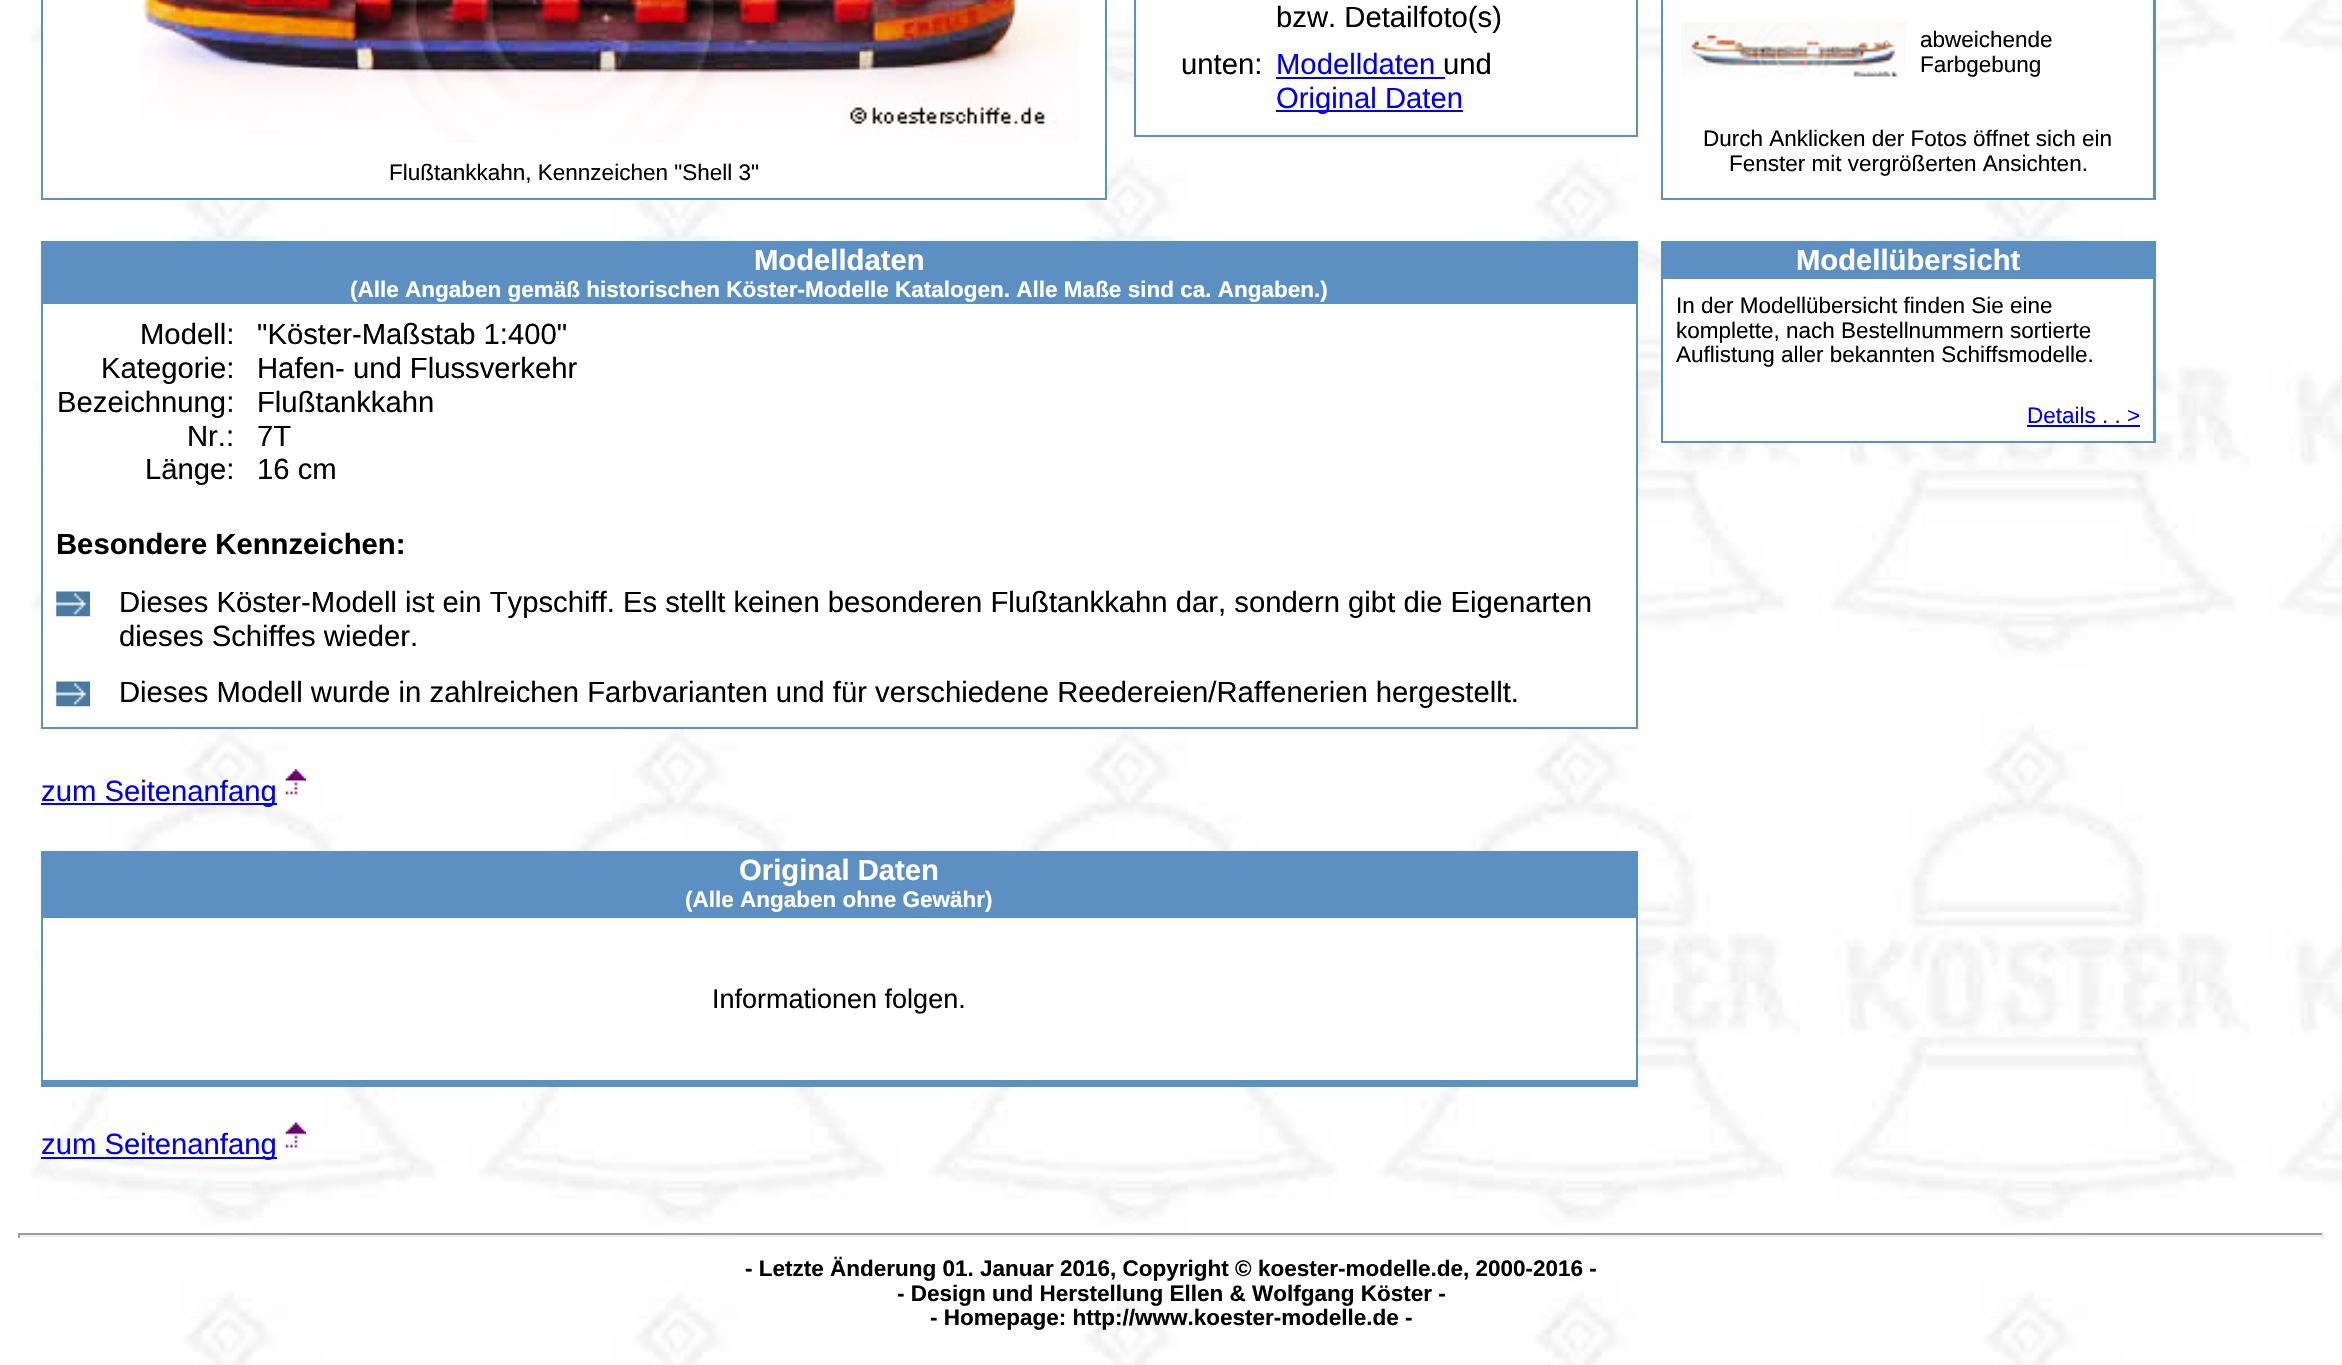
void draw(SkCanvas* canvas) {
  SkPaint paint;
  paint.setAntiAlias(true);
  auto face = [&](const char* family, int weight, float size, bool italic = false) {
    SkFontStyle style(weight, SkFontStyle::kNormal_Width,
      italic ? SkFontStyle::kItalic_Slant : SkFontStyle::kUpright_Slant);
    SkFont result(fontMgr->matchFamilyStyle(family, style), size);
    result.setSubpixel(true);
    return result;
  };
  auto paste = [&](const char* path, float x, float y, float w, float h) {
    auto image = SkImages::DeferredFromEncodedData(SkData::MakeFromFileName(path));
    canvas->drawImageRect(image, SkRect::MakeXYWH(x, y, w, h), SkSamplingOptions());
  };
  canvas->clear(0xffffffff);
  paste("img/1.png", 30, 0, 2312, 1365);
  {
    const struct { float x, y, w, h; SkColor color; } items[] = {
      {1134, 0, 504, 137, 0xff5c90c2},
      {1136, 0, 500, 135, 0xffffffff},
      {1276, 77, 169, 2, 0xff0000ee},
      {1276, 110, 187, 2, 0xff0000ee},
      {41, 0, 1066, 200, 0xff5c90c2},
      {43, 0, 1062, 198, 0xffffffff},
    };
    for (auto [x, y, w, h, color] : items) {
      paint.setColor(color);
      canvas->drawRect(SkRect::MakeXYWH(x, y, w, h), paint);
    }
  }
  paste("img/2.png", 140, 0, 940, 143);
  paint.setColor(0xff5c90c2);
  canvas->drawRect(SkRect::MakeXYWH(41, 241, 1597, 488), paint);
  paint.setColor(0xffffffff);
  canvas->drawRect(SkRect::MakeXYWH(43, 304, 1593, 423), paint);
  paste("img/3.png", 56, 591, 34, 26);
  paste("img/3.png", 56, 681, 34, 26);
  paint.setColor(0xff0000ee);
  canvas->drawRect(SkRect::MakeXYWH(41, 803, 236, 2), paint);
  paste("img/4.png", 285, 769, 21, 26);
  {
    const struct { float x, y, w, h; SkColor color; } items[] = {
      {41, 851, 1597, 236, 0xff5c90c2},
      {43, 918, 1593, 162, 0xffffffff},
      {41, 1157, 236, 2, 0xff0000ee},
    };
    for (auto [x, y, w, h, color] : items) {
      paint.setColor(color);
      canvas->drawRect(SkRect::MakeXYWH(x, y, w, h), paint);
    }
  }
  paste("img/5.png", 285, 1122, 21, 26);
  paint.setColor(0xff5c90c2);
  canvas->drawRect(SkRect::MakeXYWH(1661, 0, 495, 200), paint);
  paint.setColor(0xffffffff);
  canvas->drawRect(SkRect::MakeXYWH(1663, 0, 490, 198), paint);
  paste("img/6.png", 1681, 22, 225, 55);
  {
    const struct { float x, y, w, h; SkColor color; } items[] = {
      {1661, 241, 495, 202, 0xff5c90c2},
      {1663, 279, 490, 162, 0xffffffff},
      {2027, 425, 113, 2, 0xff0000ee},
      {18, 1233, 2306, 2, 0xff9f9f9f},
      {2322, 1233, 2, 5, 0xffeeeeee},
      {18, 1235, 2306, 2, 0xffeeeeee},
      {18, 1233, 2, 5, 0xff9f9f9f},
    };
    for (auto [x, y, w, h, color] : items) {
      paint.setColor(color);
      canvas->drawRect(SkRect::MakeXYWH(x, y, w, h), paint);
    }
  }
  auto f0 = face("Liberation Sans", 400, 29.25f);
  paint.setColor(0xff000000);
  canvas->drawString("bzw. Detailfoto(s)", 1276, 27, f0, paint);
  canvas->drawString("unten:", 1181, 74, f0, paint);
  paint.setColor(0xff0000ee);
  canvas->drawString("Modelldaten", 1276, 74, f0, paint);
  paint.setColor(0xff000000);
  canvas->drawString("und", 1443, 74, f0, paint);
  paint.setColor(0xff0000ee);
  canvas->drawString("Original Daten", 1276, 108, f0, paint);
  auto f1 = face("Liberation Sans", 400, 22.5f);
  paint.setColor(0xff000000);
  canvas->drawString("Flußtankkahn, Kennzeichen \"Shell 3\"", 389, 180, f1, paint);
  auto f2 = face("Liberation Sans", 700, 29.25f);
  paint.setColor(0xffffffff);
  canvas->drawString("Modelldaten", 754, 270, f2, paint);
  auto f3 = face("Liberation Sans", 700, 22.5f);
  canvas->drawString("(Alle Angaben gemäß historischen Köster-Modelle Katalogen. Alle Maße sind ca. Angaben.)", 350, 297, f3, paint);
  paint.setColor(0xff000000);
  {
    const struct { const char* s; float x, y; } items[] = {
      {"Modell:", 140, 344},
      {"\"Köster-Maßstab 1:400\"", 257, 344},
      {"Kategorie:", 101, 378},
      {"Hafen- und Flussverkehr", 257, 378},
      {"Bezeichnung:", 57, 412},
      {"Flußtankkahn", 257, 412},
      {"Nr.:", 187, 446},
      {"7T", 257, 446},
      {"Länge:", 145, 479},
      {"16 cm", 257, 479},
    };
    for (auto [s, x, y] : items) {
      canvas->drawString(s, x, y, f0, paint);
    }
  }
  canvas->drawString("Besondere Kennzeichen:", 56, 554, f2, paint);
  {
    const struct { const char* s; float x, y; } items[] = {
      {"Dieses Köster-Modell ist ein Typschiff. Es stellt keinen besonderen Flußtankkahn dar, sondern gibt die Eigenarten", 119, 612},
      {"dieses Schiffes wieder.", 119, 646},
      {"Dieses Modell wurde in zahlreichen Farbvarianten und für verschiedene Reedereien/Raffenerien hergestellt.", 119, 702},
    };
    for (auto [s, x, y] : items) {
      canvas->drawString(s, x, y, f0, paint);
    }
  }
  paint.setColor(0xff0000ee);
  canvas->drawString("zum Seitenanfang", 41, 801, f0, paint);
  paint.setColor(0xffffffff);
  canvas->drawString("Original Daten", 739, 880, f2, paint);
  canvas->drawString("(Alle Angaben ohne Gewähr)", 685, 907, f3, paint);
  auto f4 = face("Liberation Sans", 400, 27);
  paint.setColor(0xff000000);
  canvas->drawString("Informationen folgen.", 712, 1008, f4, paint);
  paint.setColor(0xff0000ee);
  canvas->drawString("zum Seitenanfang", 41, 1154, f0, paint);
  paint.setColor(0xff000000);
  {
    const struct { const char* s; float x, y; } items[] = {
      {"abweichende", 1920, 47},
      {"Farbgebung", 1920, 72},
      {"Durch Anklicken der Fotos öffnet sich ein", 1703, 146},
      {"Fenster mit vergrößerten Ansichten.", 1729, 171},
    };
    for (auto [s, x, y] : items) {
      canvas->drawString(s, x, y, f1, paint);
    }
  }
  paint.setColor(0xffffffff);
  canvas->drawString("Modellübersicht", 1796, 270, f2, paint);
  paint.setColor(0xff000000);
  {
    const struct { const char* s; float x, y; } items[] = {
      {"In der Modellübersicht finden Sie eine", 1676, 313},
      {"komplette, nach Bestellnummern sortierte", 1676, 338},
      {"Auflistung aller bekannten Schiffsmodelle.", 1676, 362},
    };
    for (auto [s, x, y] : items) {
      canvas->drawString(s, x, y, f1, paint);
    }
  }
  paint.setColor(0xff0000ee);
  canvas->drawString("Details . . >", 2027, 423, f1, paint);
  paint.setColor(0xff000000);
  {
    const struct { const char* s; float x, y; } items[] = {
      {"- Letzte Änderung 01. Januar 2016, Copyright © koester-modelle.de, 2000-2016 -", 745, 1276},
      {"- Design und Herstellung Ellen & Wolfgang Köster -", 897, 1301},
      {"- Homepage: http://www.koester-modelle.de -", 930, 1325},
    };
    for (auto [s, x, y] : items) {
      canvas->drawString(s, x, y, f3, paint);
    }
  }
}
